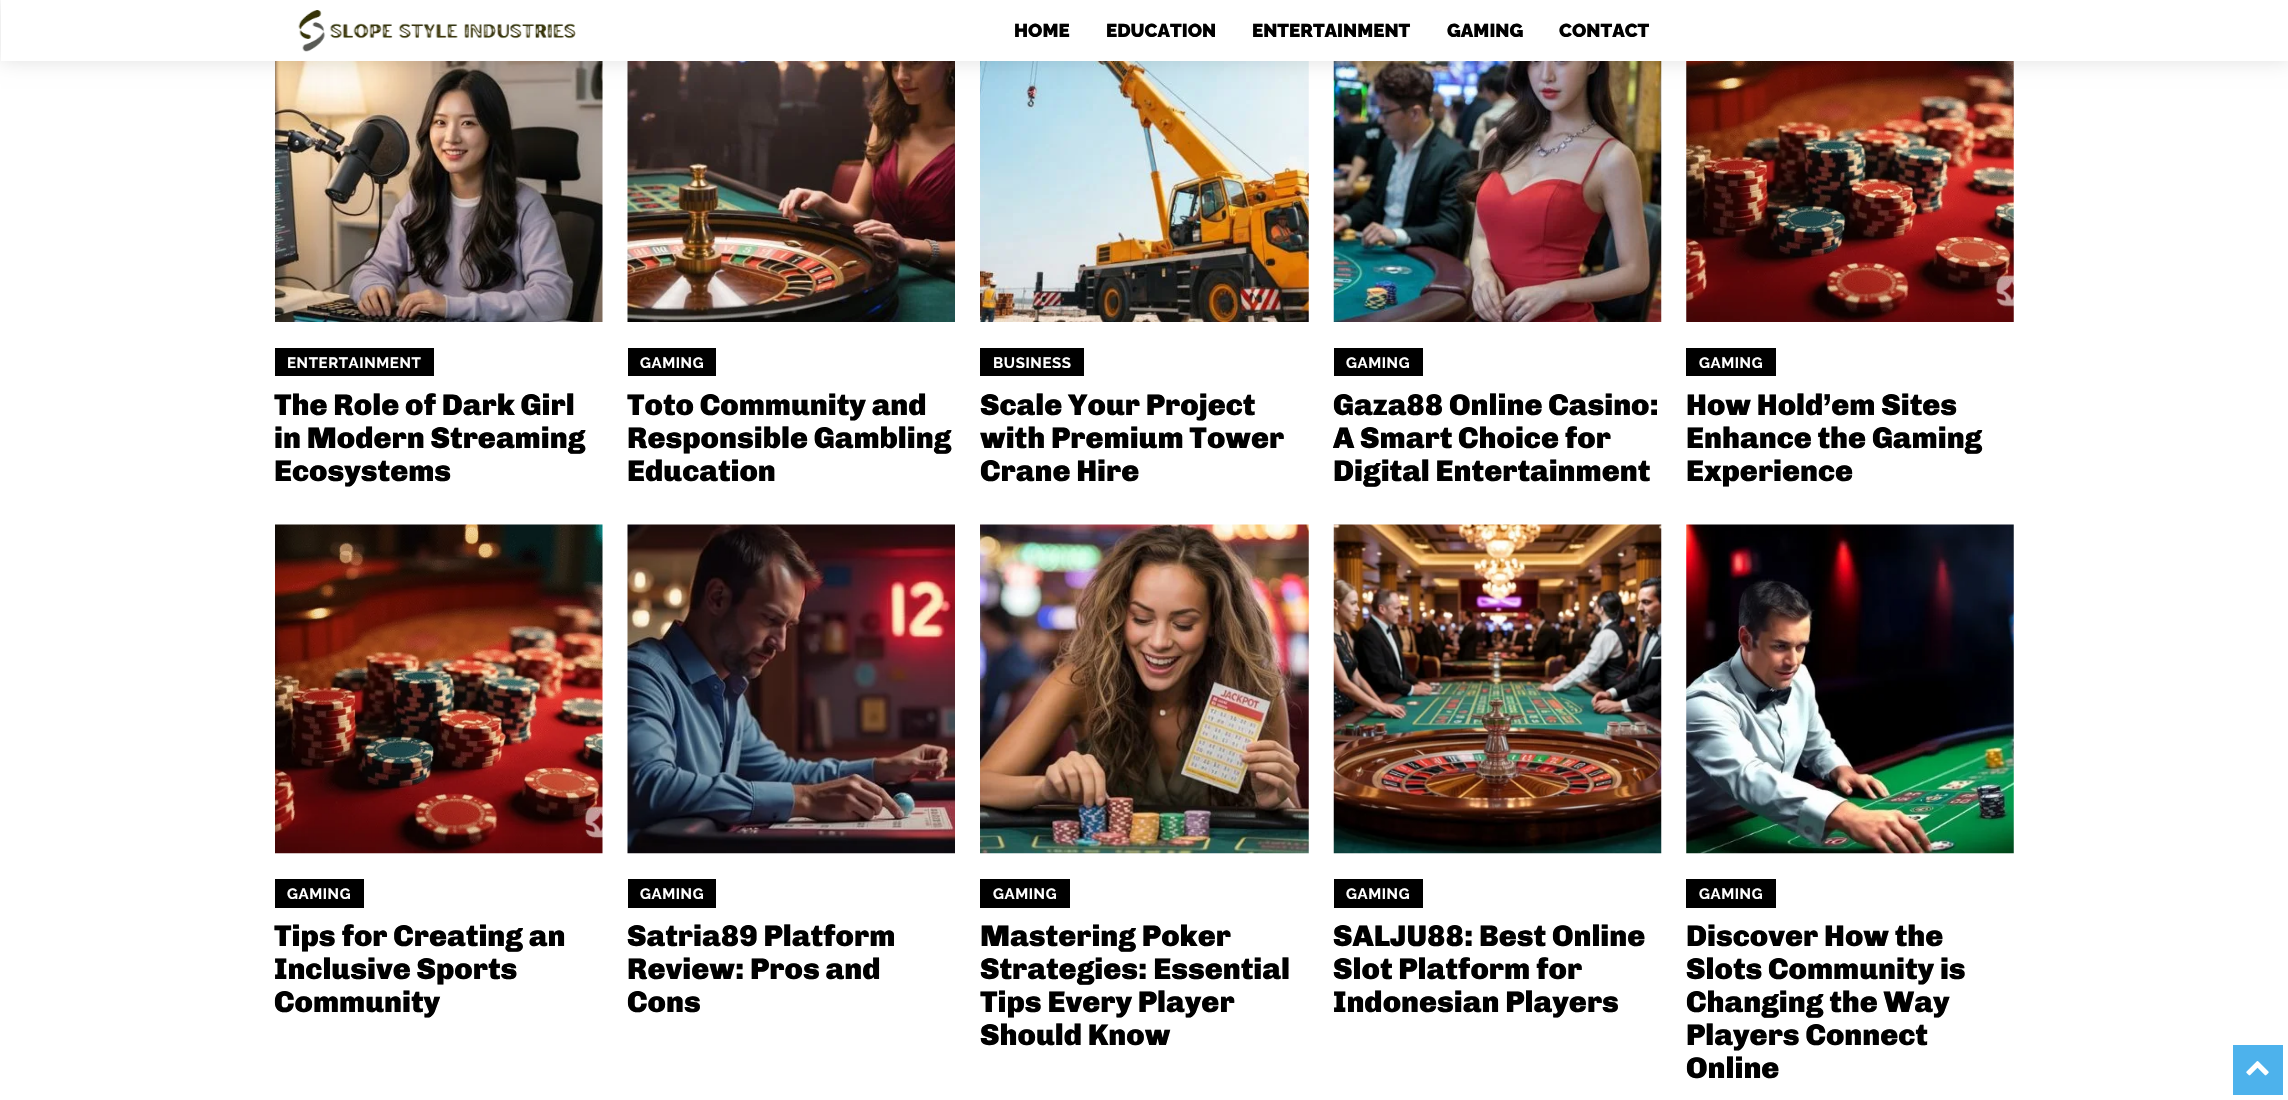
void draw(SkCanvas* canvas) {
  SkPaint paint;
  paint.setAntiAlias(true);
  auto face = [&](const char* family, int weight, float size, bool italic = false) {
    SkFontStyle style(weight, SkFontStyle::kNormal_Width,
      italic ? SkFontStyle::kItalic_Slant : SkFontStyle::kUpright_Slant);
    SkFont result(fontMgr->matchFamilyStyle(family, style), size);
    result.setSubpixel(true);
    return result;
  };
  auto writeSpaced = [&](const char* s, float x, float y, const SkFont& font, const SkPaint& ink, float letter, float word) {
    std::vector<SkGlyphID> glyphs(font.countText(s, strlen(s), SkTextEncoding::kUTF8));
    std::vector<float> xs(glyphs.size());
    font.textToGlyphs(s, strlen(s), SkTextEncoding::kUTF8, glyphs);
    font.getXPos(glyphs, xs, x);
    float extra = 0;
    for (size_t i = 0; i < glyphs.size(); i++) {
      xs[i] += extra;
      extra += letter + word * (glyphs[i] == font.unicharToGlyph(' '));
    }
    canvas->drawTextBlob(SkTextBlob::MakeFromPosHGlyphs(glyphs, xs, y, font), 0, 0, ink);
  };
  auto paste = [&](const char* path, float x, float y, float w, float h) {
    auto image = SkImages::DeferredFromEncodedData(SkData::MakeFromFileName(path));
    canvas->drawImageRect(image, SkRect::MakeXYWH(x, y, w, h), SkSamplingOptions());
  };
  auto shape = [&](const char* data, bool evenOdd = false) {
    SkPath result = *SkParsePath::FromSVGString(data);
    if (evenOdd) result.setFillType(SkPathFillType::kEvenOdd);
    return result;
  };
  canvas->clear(0xffffffff);
  paste("img/1.png", 298, 10, 278, 42);
  paste("img/2.png", 275, 61, 328, 261);
  paste("img/3.png", 627, 61, 328, 261);
  paste("img/4.png", 980, 61, 329, 261);
  paste("img/5.png", 1333, 61, 329, 261);
  paste("img/6.png", 1686, 61, 328, 261);
  canvas->save();
  canvas->clipPath(shape("M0 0H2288V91H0ZM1 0H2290V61H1Z", true), true);
  paint.setColor(0x1f000000);
  paint.setMaskFilter(SkMaskFilter::MakeBlur(kNormal_SkBlurStyle, 9.5f));
  canvas->drawRect(SkRect::MakeXYWH(1, 0, 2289, 61), paint);
  paint.setMaskFilter(nullptr);
  canvas->restore();
  {
    const struct { float x, y, w, h; SkColor color; } items[] = {
      {275, 348, 159, 28, 0xff000000},
      {628, 348, 88, 28, 0xff000000},
      {980, 348, 104, 28, 0xff000000},
      {1334, 348, 89, 28, 0xff000000},
      {1686, 348, 90, 28, 0xff000000},
    };
    for (auto [x, y, w, h, color] : items) {
      paint.setColor(color);
      canvas->drawRect(SkRect::MakeXYWH(x, y, w, h), paint);
    }
  }
  paste("img/7.png", 275, 524, 328, 330);
  canvas->drawRect(SkRect::MakeXYWH(275, 879, 89, 29), paint);
  paste("img/8.png", 627, 524, 328, 330);
  canvas->drawRect(SkRect::MakeXYWH(628, 879, 88, 29), paint);
  paste("img/9.png", 980, 524, 329, 330);
  canvas->drawRect(SkRect::MakeXYWH(980, 879, 90, 29), paint);
  paste("img/10.png", 1333, 524, 329, 330);
  canvas->drawRect(SkRect::MakeXYWH(1334, 879, 89, 29), paint);
  paste("img/11.png", 1686, 524, 328, 330);
  canvas->drawRect(SkRect::MakeXYWH(1686, 879, 90, 29), paint);
  paint.setColor(0xff4db2ec);
  canvas->drawRect(SkRect::MakeXYWH(2233, 1045, 50, 50), paint);
  paste("img/12.png", 2246, 1061, 23, 15);
  auto f0 = face("Raleway", 900, 18.75f);
  paint.setColor(0xff000000);
  {
    const struct { const char* s; float x, y; } items[] = {
      {"HOME", 1014, 37},
      {"EDUCATION", 1106, 37},
      {"ENTERTAINMENT", 1252, 37},
      {"GAMING", 1447, 37},
      {"CONTACT", 1559, 37},
    };
    for (auto [s, x, y] : items) {
      canvas->drawString(s, x, y, f0, paint);
    }
  }
  auto f1 = face("Raleway", 700, 15);
  paint.setColor(0xffffffff);
  writeSpaced("ENTERTAINMENT", 287, 368, f1, paint, 0.6f, 0);
  auto f2 = face("Chivo", 900, 30);
  paint.setColor(0xff000000);
  {
    const struct { const char* s; float x, y; } items[] = {
      {"The Role of Dark Girl", 274, 415},
      {"in Modern Streaming", 274, 448},
      {"Ecosystems", 274, 481},
    };
    for (auto [s, x, y] : items) {
      canvas->drawString(s, x, y, f2, paint);
    }
  }
  paint.setColor(0xffffffff);
  writeSpaced("GAMING", 640, 368, f1, paint, 0.6f, 0);
  paint.setColor(0xff000000);
  {
    const struct { const char* s; float x, y; } items[] = {
      {"Toto Community and", 627, 415},
      {"Responsible Gambling", 627, 448},
      {"Education", 627, 481},
    };
    for (auto [s, x, y] : items) {
      canvas->drawString(s, x, y, f2, paint);
    }
  }
  paint.setColor(0xffffffff);
  writeSpaced("BUSINESS", 993, 368, f1, paint, 0.6f, 0);
  paint.setColor(0xff000000);
  {
    const struct { const char* s; float x, y; } items[] = {
      {"Scale Your Project", 980, 415},
      {"with Premium Tower", 980, 448},
      {"Crane Hire", 980, 481},
    };
    for (auto [s, x, y] : items) {
      canvas->drawString(s, x, y, f2, paint);
    }
  }
  paint.setColor(0xffffffff);
  writeSpaced("GAMING", 1346, 368, f1, paint, 0.6f, 0);
  paint.setColor(0xff000000);
  {
    const struct { const char* s; float x, y; } items[] = {
      {"Gaza88 Online Casino:", 1333, 415},
      {"A Smart Choice for", 1333, 448},
      {"Digital Entertainment", 1333, 481},
    };
    for (auto [s, x, y] : items) {
      canvas->drawString(s, x, y, f2, paint);
    }
  }
  paint.setColor(0xffffffff);
  writeSpaced("GAMING", 1699, 368, f1, paint, 0.6f, 0);
  paint.setColor(0xff000000);
  {
    const struct { const char* s; float x, y; } items[] = {
      {"How Hold’em Sites", 1686, 415},
      {"Enhance the Gaming", 1686, 448},
      {"Experience", 1686, 481},
    };
    for (auto [s, x, y] : items) {
      canvas->drawString(s, x, y, f2, paint);
    }
  }
  paint.setColor(0xffffffff);
  writeSpaced("GAMING", 287, 899, f1, paint, 0.6f, 0);
  paint.setColor(0xff000000);
  {
    const struct { const char* s; float x, y; } items[] = {
      {"Tips for Creating an", 274, 946},
      {"Inclusive Sports", 274, 979},
      {"Community", 274, 1012},
    };
    for (auto [s, x, y] : items) {
      canvas->drawString(s, x, y, f2, paint);
    }
  }
  paint.setColor(0xffffffff);
  writeSpaced("GAMING", 640, 899, f1, paint, 0.6f, 0);
  paint.setColor(0xff000000);
  {
    const struct { const char* s; float x, y; } items[] = {
      {"Satria89 Platform", 627, 946},
      {"Review: Pros and", 627, 979},
      {"Cons", 627, 1012},
    };
    for (auto [s, x, y] : items) {
      canvas->drawString(s, x, y, f2, paint);
    }
  }
  paint.setColor(0xffffffff);
  writeSpaced("GAMING", 993, 899, f1, paint, 0.6f, 0);
  paint.setColor(0xff000000);
  {
    const struct { const char* s; float x, y; } items[] = {
      {"Mastering Poker", 980, 946},
      {"Strategies: Essential", 980, 979},
      {"Tips Every Player", 980, 1012},
      {"Should Know", 980, 1045},
    };
    for (auto [s, x, y] : items) {
      canvas->drawString(s, x, y, f2, paint);
    }
  }
  paint.setColor(0xffffffff);
  writeSpaced("GAMING", 1346, 899, f1, paint, 0.6f, 0);
  paint.setColor(0xff000000);
  {
    const struct { const char* s; float x, y; } items[] = {
      {"SALJU88: Best Online", 1333, 946},
      {"Slot Platform for", 1333, 979},
      {"Indonesian Players", 1333, 1012},
    };
    for (auto [s, x, y] : items) {
      canvas->drawString(s, x, y, f2, paint);
    }
  }
  paint.setColor(0xffffffff);
  writeSpaced("GAMING", 1699, 899, f1, paint, 0.6f, 0);
  paint.setColor(0xff000000);
  {
    const struct { const char* s; float x, y; } items[] = {
      {"Discover How the", 1686, 946},
      {"Slots Community is", 1686, 979},
      {"Changing the Way", 1686, 1012},
      {"Players Connect", 1686, 1045},
      {"Online", 1686, 1078},
    };
    for (auto [s, x, y] : items) {
      canvas->drawString(s, x, y, f2, paint);
    }
  }
}
